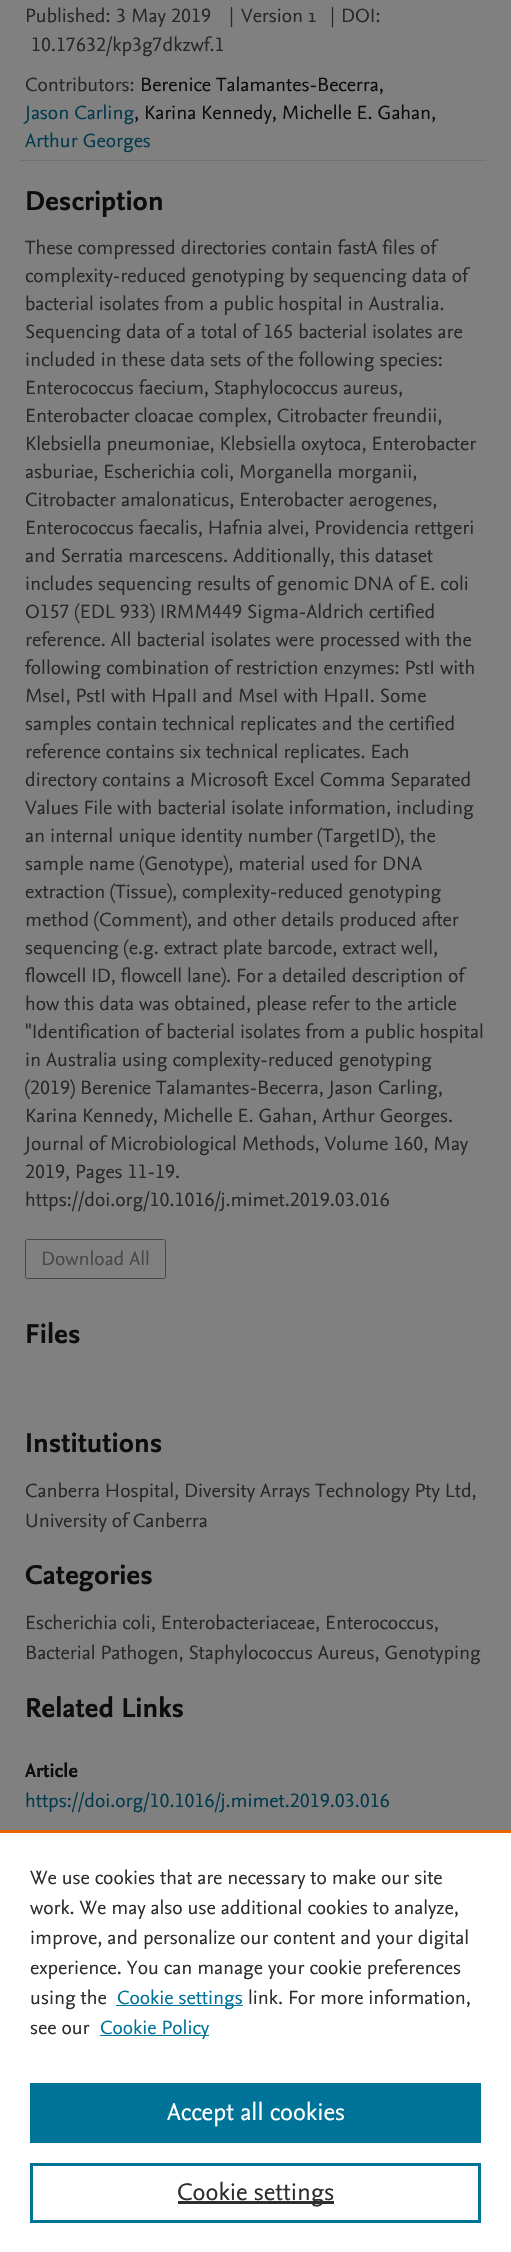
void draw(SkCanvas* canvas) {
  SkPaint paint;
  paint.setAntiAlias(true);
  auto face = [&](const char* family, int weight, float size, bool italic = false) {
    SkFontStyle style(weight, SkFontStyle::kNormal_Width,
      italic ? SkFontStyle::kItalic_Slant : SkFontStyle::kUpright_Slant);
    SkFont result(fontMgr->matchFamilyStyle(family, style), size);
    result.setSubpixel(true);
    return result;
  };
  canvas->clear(0xff808080);
  paint.setColor(0xff727272);
  canvas->drawRect(SkRect::MakeXYWH(20, 160, 466, 1), paint);
  paint.setStroke(true);
  paint.setStrokeWidth(1);
  paint.setColor(0xff474747);
  canvas->drawRoundRect(SkRect::MakeXYWH(25.5f, 1239.5f, 140, 39), 2, 2, paint);
  paint.setStroke(false);
  {
    const struct { float x, y, w, h; SkColor color; } items[] = {
      {0, 1833, 511, 419, 0xffffffff},
      {0, 1830, 511, 3, 0xffeb6500},
      {116, 2005, 127, 1, 0xff007398},
      {100, 2035, 109, 1, 0xff007398},
      {30, 2083, 451, 60, 0xff007398},
    };
    for (auto [x, y, w, h, color] : items) {
      paint.setColor(color);
      canvas->drawRect(SkRect::MakeXYWH(x, y, w, h), paint);
    }
  }
  paint.setStroke(true);
  paint.setStrokeWidth(3);
  canvas->drawRect(SkRect::MakeXYWH(31.5f, 2164.5f, 448, 57), paint);
  paint.setStroke(false);
  paint.setColor(0xff2e2e2e);
  canvas->drawRect(SkRect::MakeXYWH(178, 2201, 156, 3), paint);
  auto f0 = face("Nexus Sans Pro", 400, 20);
  paint.setColor(0xff282828);
  canvas->drawString("Published:", 25, 22, f0, paint);
  auto f1 = face("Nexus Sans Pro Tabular", 400, 20);
  canvas->drawString("3 May 2019", 116, 22, f1, paint);
  {
    const struct { const char* s; float x, y; } items[] = {
      {"|", 229, 22},
      {"Version 1", 241, 22},
      {"|", 330, 22},
      {"DOI:", 341, 22},
    };
    for (auto [s, x, y] : items) {
      canvas->drawString(s, x, y, f0, paint);
    }
  }
  canvas->drawString("10.17632/kp3g7dkzwf.1", 31, 51, f1, paint);
  canvas->drawString("Contributors:", 25, 91, f0, paint);
  paint.setColor(0xff0d0d0d);
  canvas->drawString("Berenice Talamantes-Becerra,", 140, 91, f0, paint);
  paint.setColor(0xff003a4c);
  canvas->drawString("Jason Carling", 25, 119, f0, paint);
  paint.setColor(0xff0d0d0d);
  canvas->drawString(", Karina Kennedy, Michelle E. Gahan,", 134, 119, f0, paint);
  paint.setColor(0xff003a4c);
  canvas->drawString("Arthur Georges", 25, 147, f0, paint);
  auto f2 = face("Nexus Sans Pro", 700, 28.5f);
  paint.setColor(0xff0d0d0d);
  canvas->drawString("Description", 25, 210, f2, paint);
  paint.setColor(0xff282828);
  {
    const struct { const char* s; float x, y; } items[] = {
      {"These compressed directories contain fastA files of", 25, 254},
      {"complexity-reduced genotyping by sequencing data of", 25, 282},
      {"bacterial isolates from a public hospital in Australia.", 25, 310},
    };
    for (auto [s, x, y] : items) {
      canvas->drawString(s, x, y, f0, paint);
    }
  }
  canvas->drawString("Sequencing data of a total of 165 bacterial isolates are", 25, 338, f1, paint);
  {
    const struct { const char* s; float x, y; } items[] = {
      {"included in these data sets of the following species:", 25, 366},
      {"Enterococcus faecium, Staphylococcus aureus,", 25, 394},
      {"Enterobacter cloacae complex, Citrobacter freundii,", 25, 422},
      {"Klebsiella pneumoniae, Klebsiella oxytoca, Enterobacter", 25, 450},
      {"asburiae, Escherichia coli, Morganella morganii,", 25, 478},
      {"Citrobacter amalonaticus, Enterobacter aerogenes,", 25, 506},
      {"Enterococcus faecalis, Hafnia alvei, Providencia rettgeri", 25, 534},
      {"and Serratia marcescens. Additionally, this dataset", 25, 562},
      {"includes sequencing results of genomic DNA of E. coli", 25, 590},
    };
    for (auto [s, x, y] : items) {
      canvas->drawString(s, x, y, f0, paint);
    }
  }
  canvas->drawString("O157 (EDL 933) IRMM449 Sigma-Aldrich certified", 25, 618, f1, paint);
  {
    const struct { const char* s; float x, y; } items[] = {
      {"reference. All bacterial isolates were processed with the", 25, 646},
      {"following combination of restriction enzymes: PstI with", 25, 674},
      {"MseI, PstI with HpaII and MseI with HpaII. Some", 25, 702},
      {"samples contain technical replicates and the certified", 25, 730},
      {"reference contains six technical replicates. Each", 25, 758},
      {"directory contains a Microsoft Excel Comma Separated", 25, 786},
      {"Values File with bacterial isolate information, including", 25, 814},
      {"an internal unique identity number (TargetID), the", 25, 842},
      {"sample name (Genotype), material used for DNA", 25, 870},
      {"extraction (Tissue), complexity-reduced genotyping", 25, 898},
      {"method (Comment), and other details produced after", 25, 926},
      {"sequencing (e.g. extract plate barcode, extract well,", 25, 954},
      {"flowcell ID, flowcell lane). For a detailed description of", 25, 982},
      {"how this data was obtained, please refer to the article", 25, 1010},
      {"\"Identification of bacterial isolates from a public hospital", 25, 1038},
      {"in Australia using complexity-reduced genotyping", 25, 1066},
    };
    for (auto [s, x, y] : items) {
      canvas->drawString(s, x, y, f0, paint);
    }
  }
  canvas->drawString("(2019) Berenice Talamantes-Becerra, Jason Carling,", 25, 1094, f1, paint);
  canvas->drawString("Karina Kennedy, Michelle E. Gahan, Arthur Georges.", 25, 1122, f0, paint);
  {
    const struct { const char* s; float x, y; } items[] = {
      {"Journal of Microbiological Methods, Volume 160, May", 25, 1150},
      {"2019, Pages 11-19.", 25, 1178},
      {"https://doi.org/10.1016/j.mimet.2019.03.016", 25, 1206},
    };
    for (auto [s, x, y] : items) {
      canvas->drawString(s, x, y, f1, paint);
    }
  }
  paint.setColor(0xff474747);
  canvas->drawString("Download All", 41, 1265, f0, paint);
  paint.setColor(0xff0d0d0d);
  canvas->drawString("Files", 25, 1343, f2, paint);
  canvas->drawString("Institutions", 25, 1452, f2, paint);
  paint.setColor(0xff282828);
  canvas->drawString("Canberra Hospital, Diversity Arrays Technology Pty Ltd,", 25, 1497, f0, paint);
  canvas->drawString("University of Canberra", 25, 1527, f0, paint);
  paint.setColor(0xff0d0d0d);
  canvas->drawString("Categories", 25, 1584, f2, paint);
  paint.setColor(0xff282828);
  canvas->drawString("Escherichia coli, Enterobacteriaceae, Enterococcus,", 25, 1629, f0, paint);
  canvas->drawString("Bacterial Pathogen, Staphylococcus Aureus, Genotyping", 25, 1659, f0, paint);
  paint.setColor(0xff0d0d0d);
  canvas->drawString("Related Links", 25, 1717, f2, paint);
  auto f3 = face("Nexus Sans Pro", 700, 20);
  canvas->drawString("Article", 25, 1777, f3, paint);
  paint.setColor(0xff003a4c);
  canvas->drawString("https://doi.org/10.1016/j.mimet.2019.03.016", 25, 1807, f1, paint);
  paint.setColor(0xff2e2e2e);
  {
    const struct { const char* s; float x, y; } items[] = {
      {"We use cookies that are necessary to make our site", 30, 1884},
      {"work. We may also use additional cookies to analyze,", 30, 1914},
      {"improve, and personalize our content and your digital", 30, 1944},
      {"experience. You can manage your cookie preferences", 30, 1974},
      {"using the", 30, 2004},
    };
    for (auto [s, x, y] : items) {
      canvas->drawString(s, x, y, f0, paint);
    }
  }
  paint.setColor(0xff007398);
  canvas->drawString("Cookie settings", 117, 2004, f0, paint);
  paint.setColor(0xff2e2e2e);
  canvas->drawString("link. For more information,", 248, 2004, f0, paint);
  canvas->drawString("see our", 30, 2034, f0, paint);
  paint.setColor(0xff007398);
  canvas->drawString("Cookie Policy", 100, 2034, f0, paint);
  auto f4 = face("Nexus Sans Pro", 400, 25);
  paint.setColor(0xffffffff);
  canvas->drawString("Accept all cookies", 167, 2120, f4, paint);
  paint.setColor(0xff2e2e2e);
  canvas->drawString("Cookie settings", 177, 2200, f4, paint);
}
